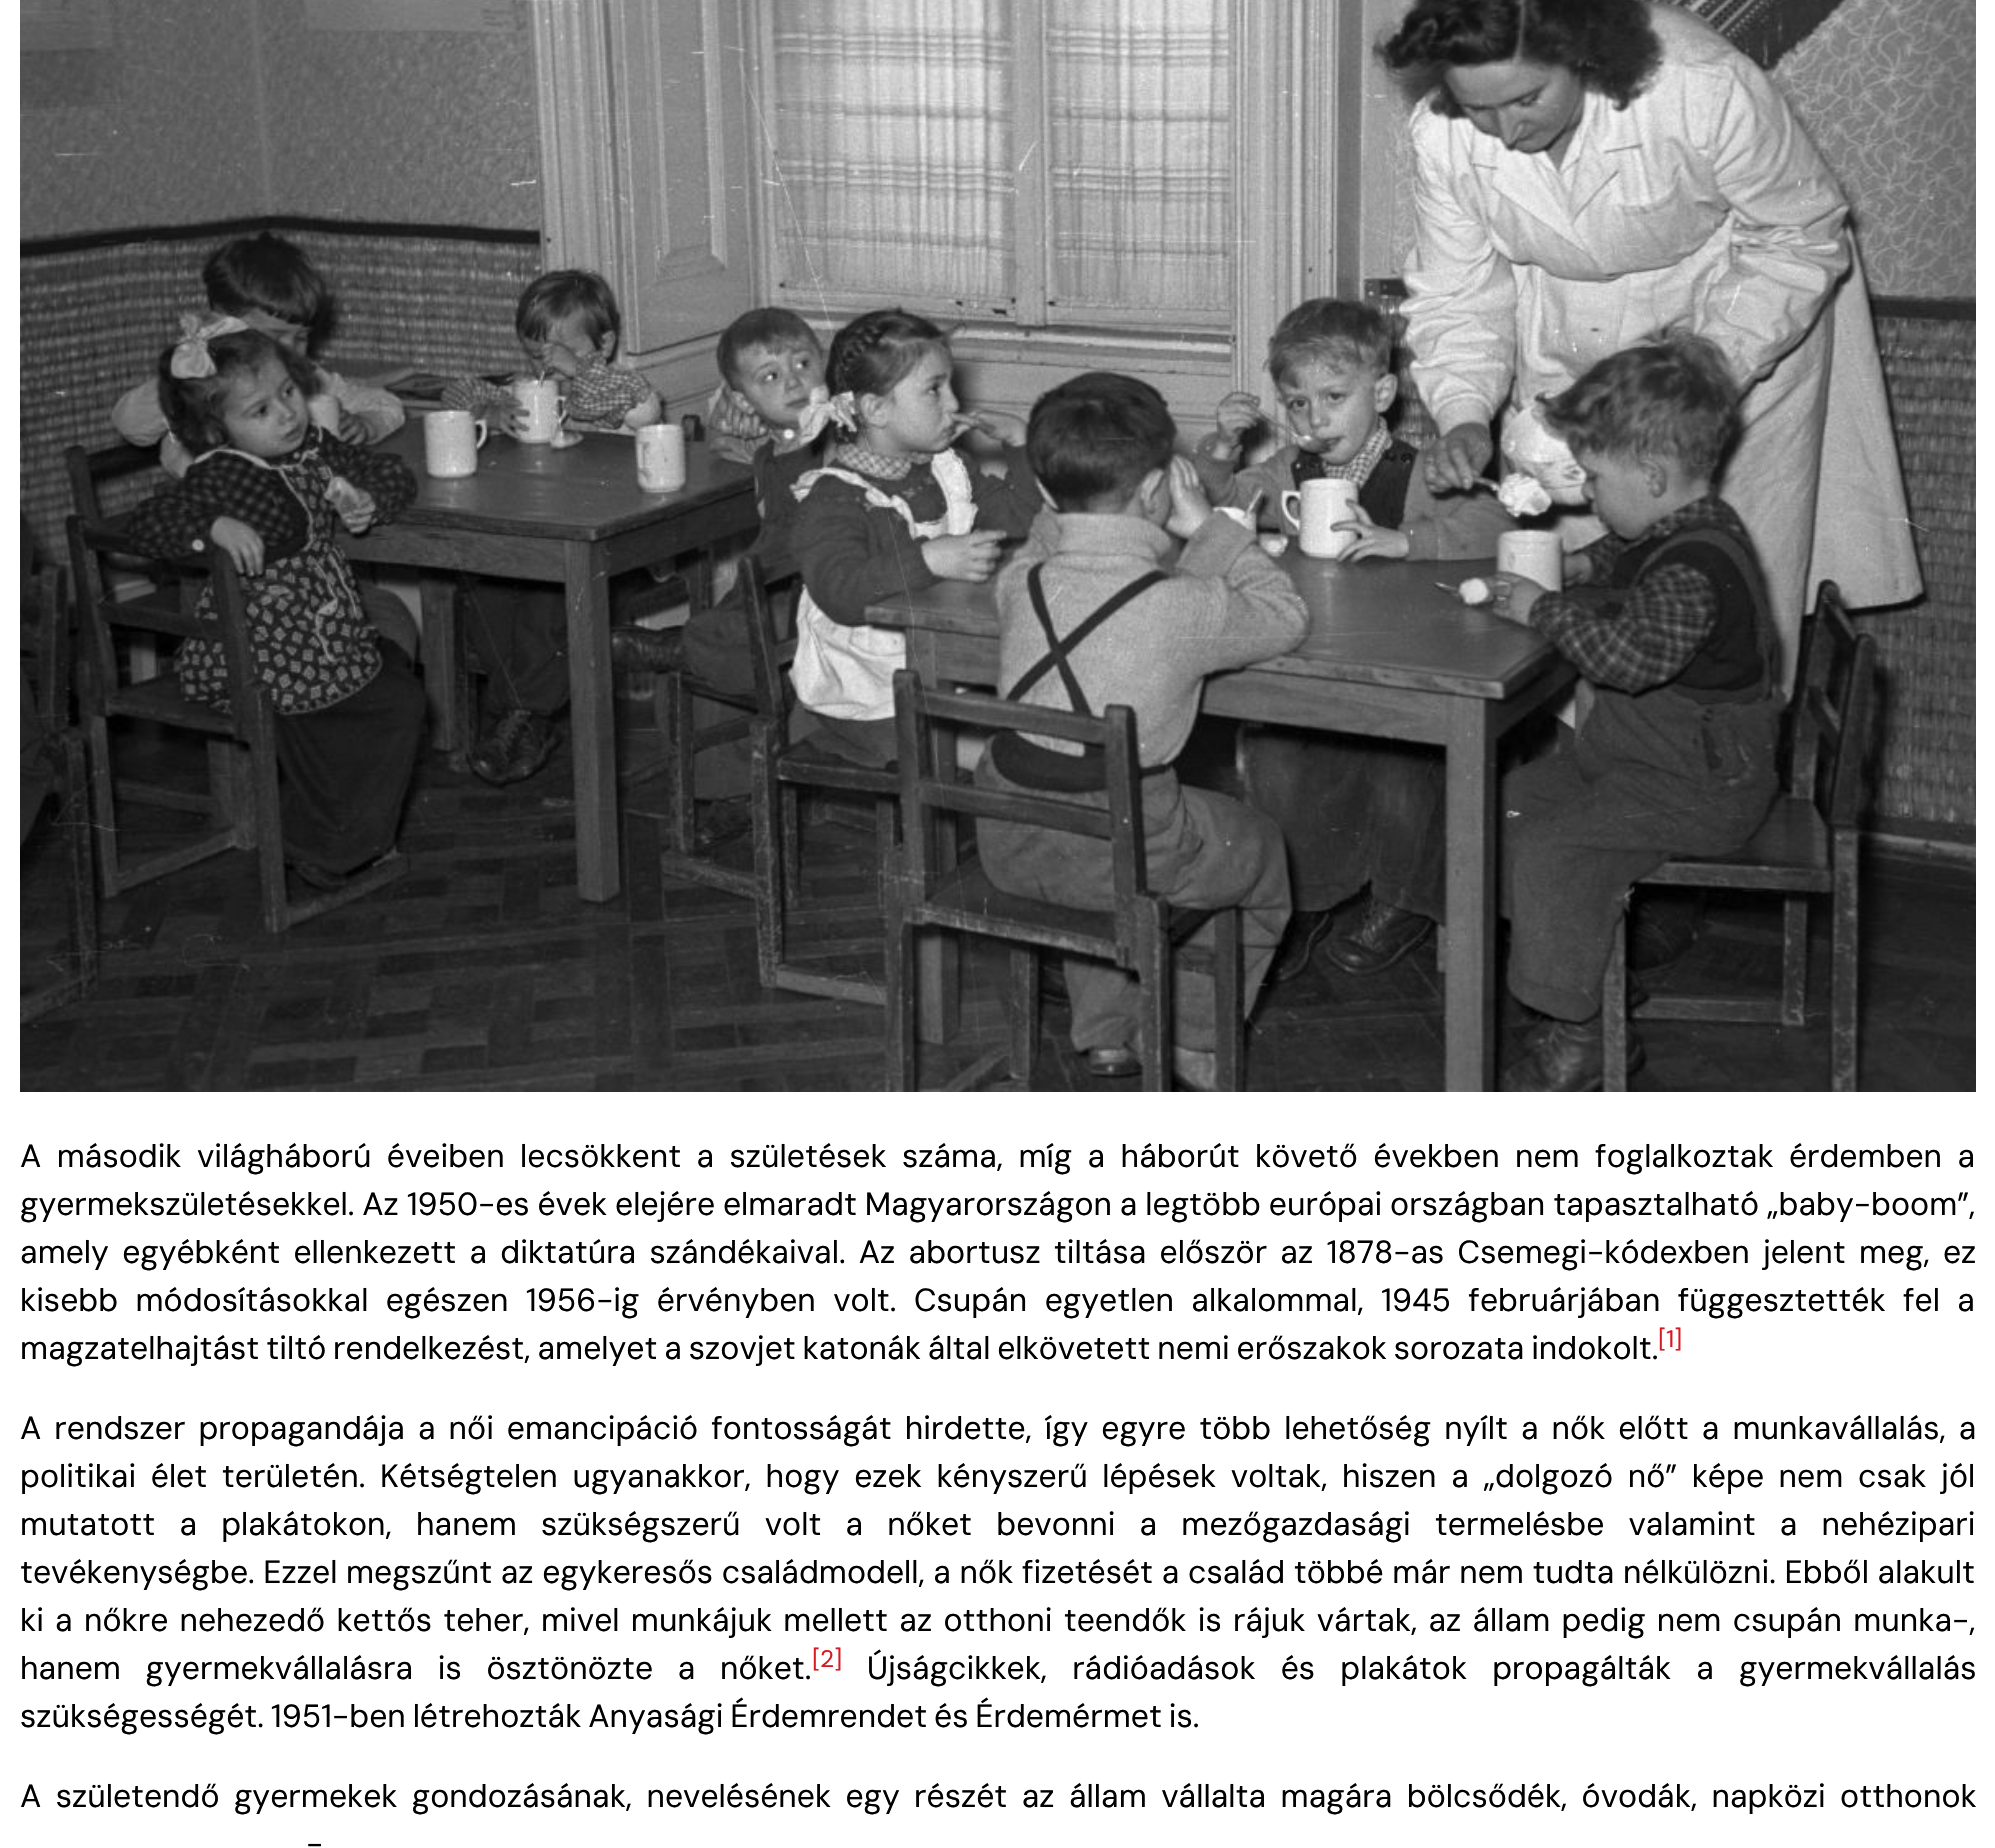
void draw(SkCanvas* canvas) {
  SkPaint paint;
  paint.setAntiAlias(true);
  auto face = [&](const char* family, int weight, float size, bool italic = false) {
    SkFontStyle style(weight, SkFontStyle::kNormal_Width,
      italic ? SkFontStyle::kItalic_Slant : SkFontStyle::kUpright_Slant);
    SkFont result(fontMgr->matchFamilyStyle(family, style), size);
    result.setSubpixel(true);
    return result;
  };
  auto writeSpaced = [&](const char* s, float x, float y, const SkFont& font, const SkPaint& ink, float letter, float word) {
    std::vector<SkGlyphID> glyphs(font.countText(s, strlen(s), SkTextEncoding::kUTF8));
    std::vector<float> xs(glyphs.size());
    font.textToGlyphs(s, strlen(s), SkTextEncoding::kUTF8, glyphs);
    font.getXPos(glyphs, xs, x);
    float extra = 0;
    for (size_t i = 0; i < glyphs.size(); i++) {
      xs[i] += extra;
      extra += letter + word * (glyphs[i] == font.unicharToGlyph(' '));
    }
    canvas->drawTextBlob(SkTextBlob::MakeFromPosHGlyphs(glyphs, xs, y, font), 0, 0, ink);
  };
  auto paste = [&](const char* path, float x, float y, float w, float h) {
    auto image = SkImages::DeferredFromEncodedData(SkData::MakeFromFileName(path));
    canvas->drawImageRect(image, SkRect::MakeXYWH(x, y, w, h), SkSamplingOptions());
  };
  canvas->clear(0xffffffff);
  paste("img/1.png", 20, 0, 1956, 1092);
  auto f0 = face("DM Sans", 400, 32);
  paint.setColor(0xff000000);
  writeSpaced("A második világháború éveiben lecsökkent a születések száma, míg a háborút követő években nem foglalkoztak érdemben a", 20, 1167, f0, paint, 0, 6.75f);
  writeSpaced("gyermekszületésekkel. Az 1950-es évek elejére elmaradt Magyarországon a legtöbb európai országban tapasztalható „baby-boom”,", 20, 1215, f0, paint, 0, -0.75f);
  writeSpaced("amely egyébként ellenkezett a diktatúra szándékaival. Az abortusz tiltása először az 1878-as Csemegi-kódexben jelent meg, ez", 20, 1263, f0, paint, 0, 4.6f);
  writeSpaced("kisebb módosításokkal egészen 1956-ig érvényben volt. Csupán egyetlen alkalommal, 1945 februárjában függesztették fel a", 20, 1311, f0, paint, 0, 8.75f);
  writeSpaced("magzatelhajtást tiltó rendelkezést, amelyet a szovjet katonák által elkövetett nemi erőszakok sorozata indokolt.", 20, 1359, f0, paint, 0, -1.75f);
  auto f1 = face("DM Sans", 400, 24);
  paint.setColor(0xffd71921);
  canvas->drawString("[1]", 1658, 1347, f1, paint);
  paint.setColor(0xff000000);
  writeSpaced("A rendszer propagandája a női emancipáció fontosságát hirdette, így egyre több lehetőség nyílt a nők előtt a munkavállalás, a", 20, 1439, f0, paint, 0, 4.4f);
  writeSpaced("politikai élet területén. Kétségtelen ugyanakkor, hogy ezek kényszerű lépések voltak, hiszen a „dolgozó nő” képe nem csak jól", 20, 1487, f0, paint, 0, 6);
  writeSpaced("mutatott a plakátokon, hanem szükségszerű volt a nőket bevonni a mezőgazdasági termelésbe valamint a nehézipari", 20, 1535, f0, paint, 0, 15.5f);
  canvas->drawString("tevékenységbe. Ezzel megszűnt az egykeresős családmodell, a nők fizetését a család többé már nem tudta nélkülözni. Ebből alakult", 20, 1583, f0, paint);
  writeSpaced("ki a nőkre nehezedő kettős teher, mivel munkájuk mellett az otthoni teendők is rájuk vártak, az állam pedig nem csupán munka-,", 20, 1631, f0, paint, 0, 2.6f);
  writeSpaced("hanem gyermekvállalásra is ösztönözte a nőket.", 20, 1679, f0, paint, 0, 16);
  paint.setColor(0xffd71921);
  canvas->drawString("[2]", 812, 1667, f1, paint);
  paint.setColor(0xff000000);
  writeSpaced("Újságcikkek, rádióadások és plakátok propagálták a gyermekvállalás", 867, 1679, f0, paint, 0, 16.5f);
  writeSpaced("szükségességét. 1951-ben létrehozták Anyasági Érdemrendet és Érdemérmet is.", 20, 1727, f0, paint, 0, -1.75f);
  writeSpaced("A születendő gyermekek gondozásának, nevelésének egy részét az állam vállalta magára bölcsődék, óvodák, napközi otthonok", 20, 1807, f0, paint, 0, 5.75f);
  writeSpaced("-", 306, 1855, f0, paint, 0, 5);
}
